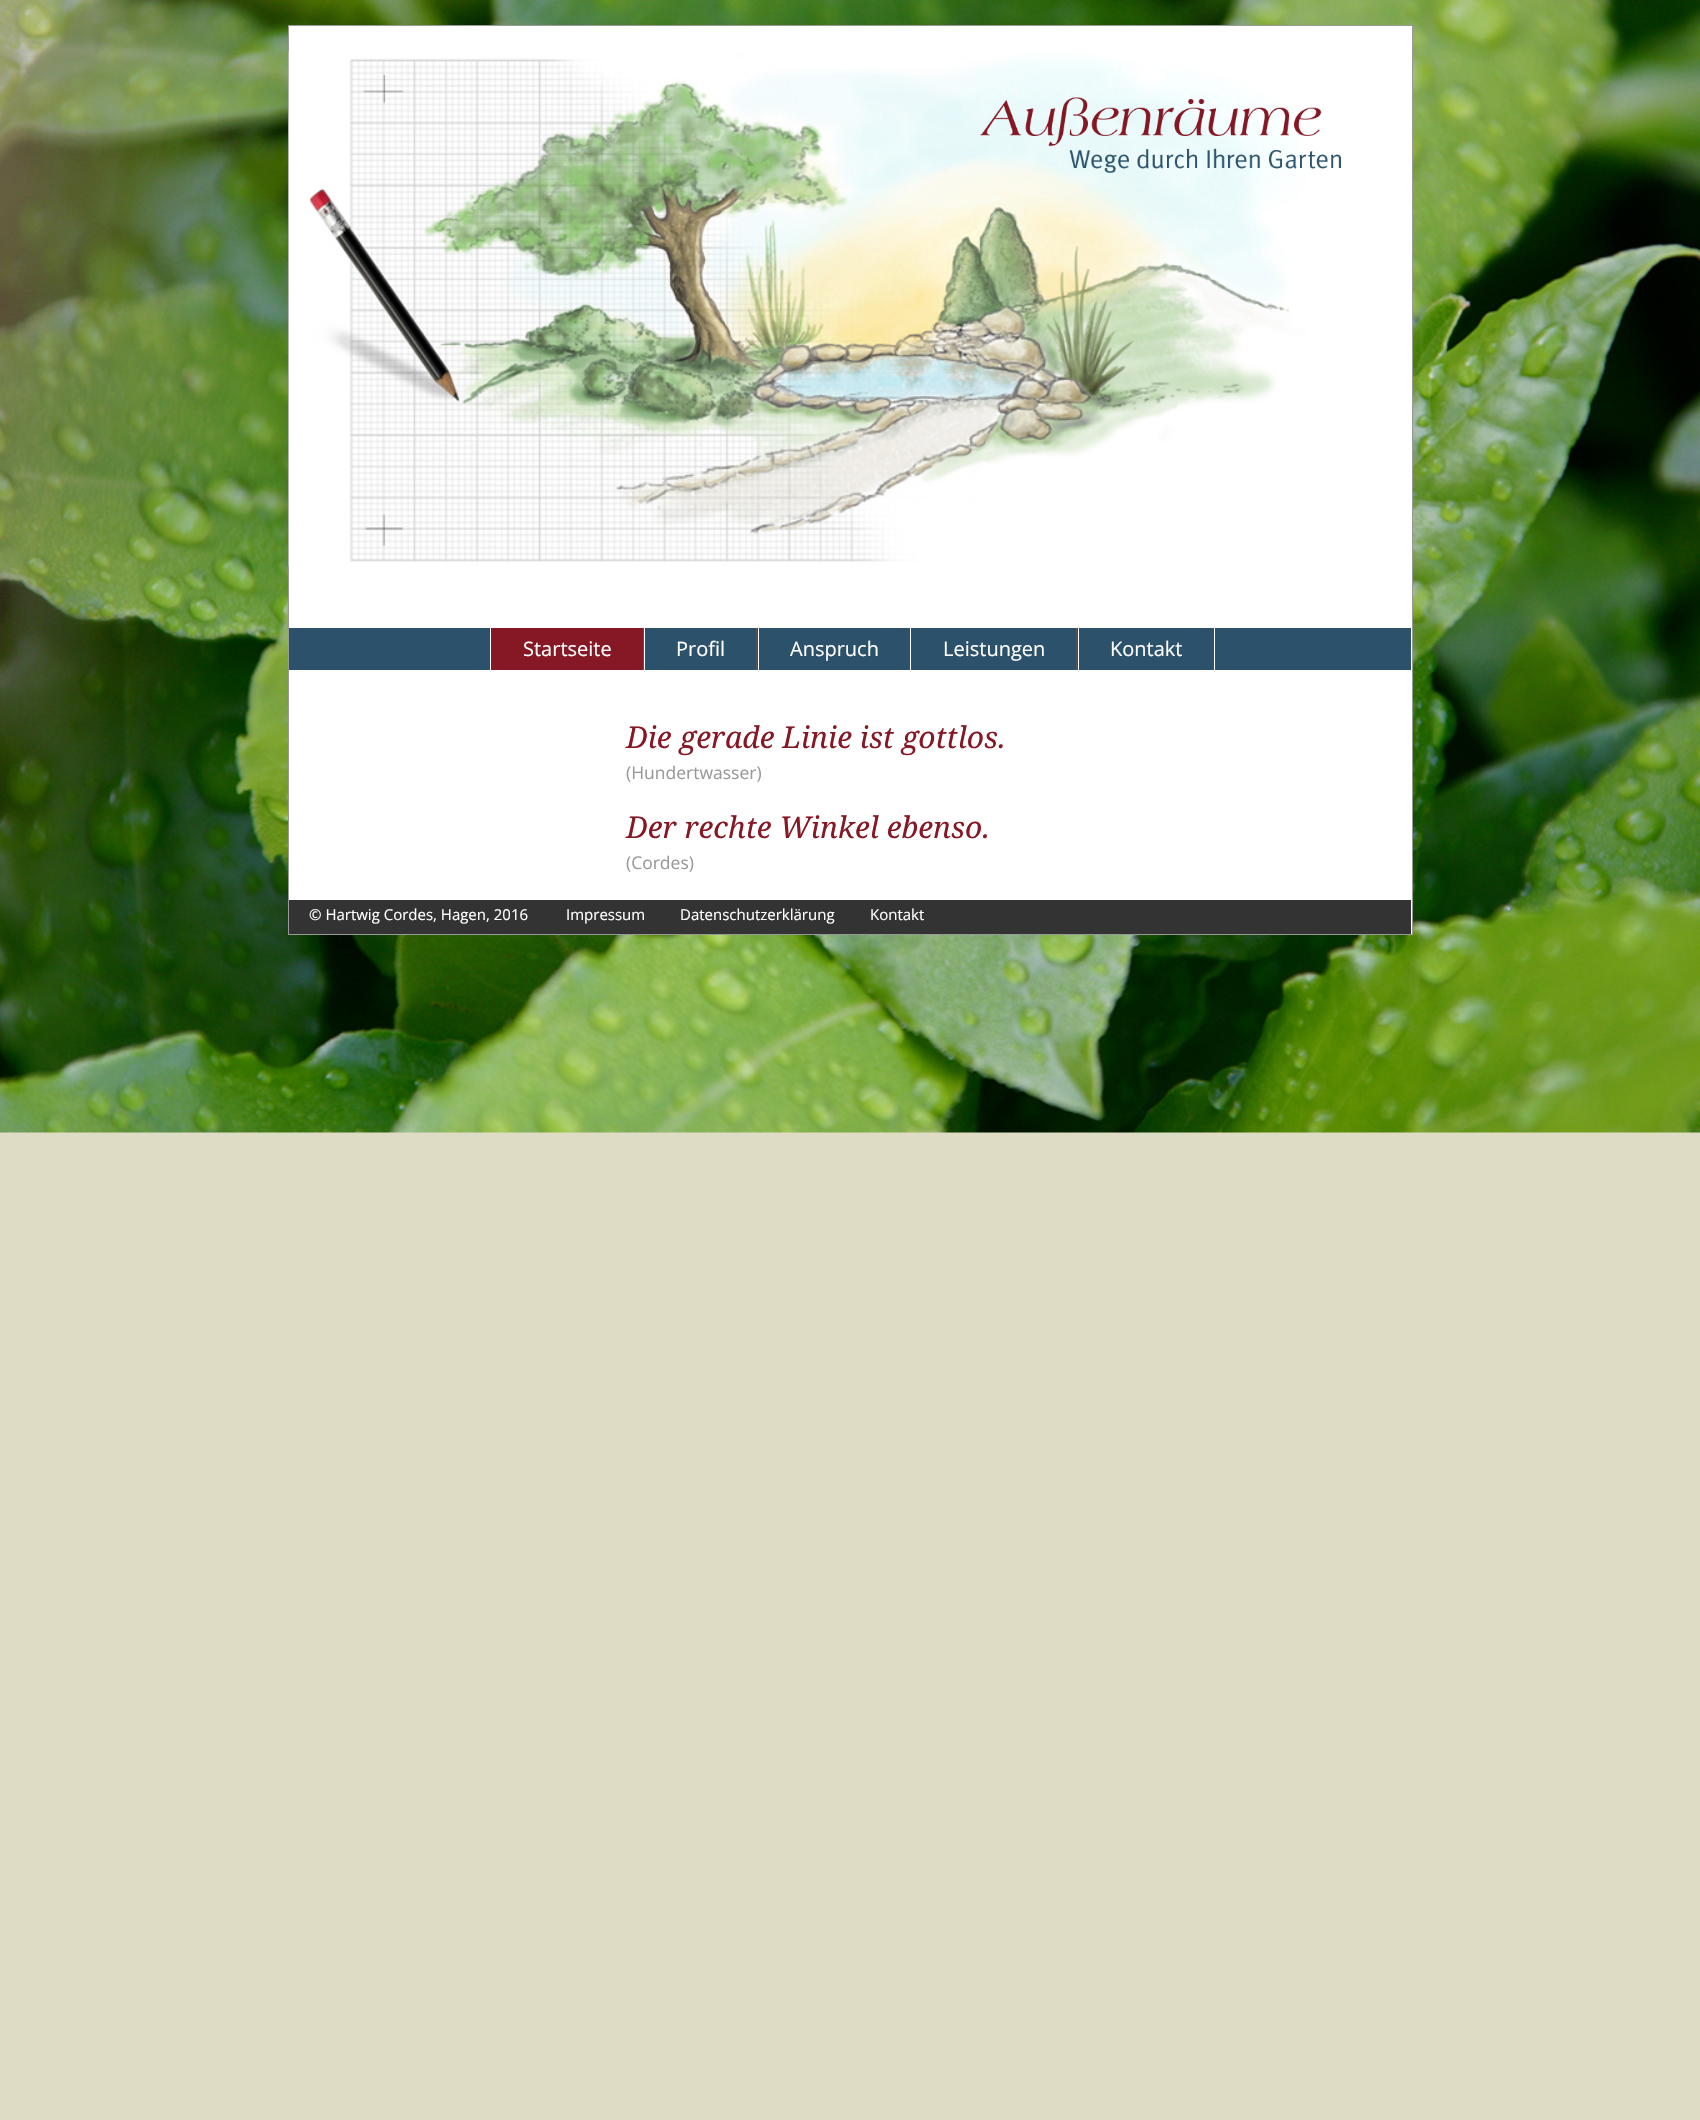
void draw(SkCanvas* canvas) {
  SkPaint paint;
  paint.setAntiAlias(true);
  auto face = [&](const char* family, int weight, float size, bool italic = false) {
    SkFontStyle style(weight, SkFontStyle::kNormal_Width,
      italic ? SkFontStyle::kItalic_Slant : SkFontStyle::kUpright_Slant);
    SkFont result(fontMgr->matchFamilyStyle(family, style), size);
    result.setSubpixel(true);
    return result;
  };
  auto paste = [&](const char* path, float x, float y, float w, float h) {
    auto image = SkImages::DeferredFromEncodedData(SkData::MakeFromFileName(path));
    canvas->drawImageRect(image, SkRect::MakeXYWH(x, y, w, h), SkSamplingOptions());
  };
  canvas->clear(0xffdfdcc5);
  paste("img/1.png", 0, 0, 1700, 1133);
  paint.setColor(0xffffffff);
  canvas->drawRect(SkRect::MakeXYWH(288.5f, 25.5f, 1124, 909), paint);
  paint.setStroke(true);
  paint.setStrokeWidth(1);
  paint.setColor(0xff999999);
  canvas->drawRect(SkRect::MakeXYWH(288.5f, 25.5f, 1124, 909), paint);
  paste("img/2.png", 288, 51, 1018, 516);
  paste("img/3.png", 980, 97, 361, 76);
  paint.setStroke(false);
  {
    const struct { float x, y, w, h; SkColor color; } items[] = {
      {289, 628, 1122, 42, 0xff2c516b},
      {491, 628, 152, 42, 0xff861825},
      {643, 628, 1, 42, 0xff555555},
      {490, 628, 1, 42, 0xffffffff},
      {756, 628, 1, 42, 0xff555555},
      {644, 628, 1, 42, 0xffffffff},
      {758, 628, 1, 42, 0xffffffff},
      {1076, 628, 1, 42, 0xff555555},
      {910, 628, 1, 42, 0xffffffff},
      {1214, 628, 1, 42, 0xffffffff},
      {1078, 628, 1, 42, 0xffffffff},
      {289, 900, 1122, 34, 0xff333333},
    };
    for (auto [x, y, w, h, color] : items) {
      paint.setColor(color);
      canvas->drawRect(SkRect::MakeXYWH(x, y, w, h), paint);
    }
  }
  auto f0 = face("Open Sans", 400, 20);
  paint.setColor(0xffffffff);
  {
    const struct { const char* s; float x, y; } items[] = {
      {"Startseite", 523, 656},
      {"Profil", 676, 656},
      {"Anspruch", 790, 656},
      {"Leistungen", 943, 656},
      {"Kontakt", 1110, 656},
    };
    for (auto [s, x, y] : items) {
      canvas->drawString(s, x, y, f0, paint);
    }
  }
  auto f1 = face("Noto Serif", 400, 30, true);
  paint.setColor(0xff861825);
  canvas->drawString("Die gerade Linie ist gottlos.", 626, 748, f1, paint);
  auto f2 = face("Open Sans", 400, 17.5f);
  paint.setColor(0xff999999);
  canvas->drawString("(Hundertwasser)", 626, 779, f2, paint);
  paint.setColor(0xff861825);
  canvas->drawString("Der rechte Winkel ebenso.", 626, 838, f1, paint);
  paint.setColor(0xff999999);
  canvas->drawString("(Cordes)", 626, 869, f2, paint);
  auto f3 = face("Open Sans", 400, 15);
  paint.setColor(0xffffffff);
  {
    const struct { const char* s; float x, y; } items[] = {
      {"© Hartwig Cordes, Hagen, 2016", 309, 920},
      {"Impressum", 566, 920},
      {"Datenschutzerklärung", 680, 920},
      {"Kontakt", 870, 920},
    };
    for (auto [s, x, y] : items) {
      canvas->drawString(s, x, y, f3, paint);
    }
  }
}
